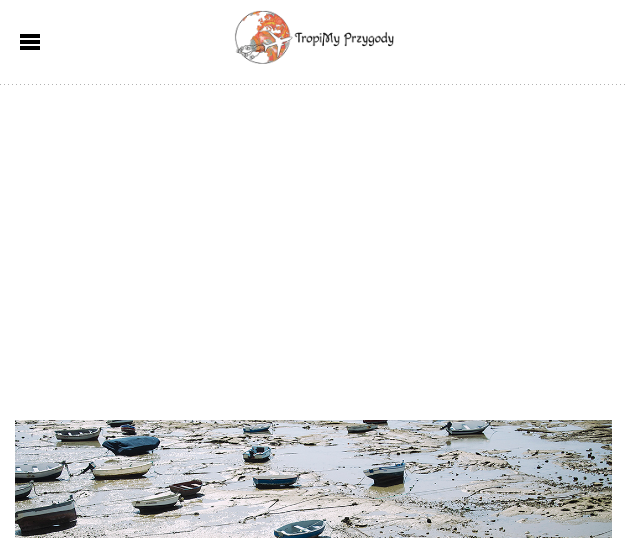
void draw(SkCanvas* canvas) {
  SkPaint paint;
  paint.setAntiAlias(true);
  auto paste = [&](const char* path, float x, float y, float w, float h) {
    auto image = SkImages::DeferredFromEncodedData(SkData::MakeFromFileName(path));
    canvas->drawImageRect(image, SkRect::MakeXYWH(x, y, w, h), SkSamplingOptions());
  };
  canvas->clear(0xffffffff);
  {
    const struct { float x, y, w, h; SkColor color; } items[] = {
      {20, 34, 20, 4, 0xff000000},
      {20, 40, 20, 4, 0xff000000},
      {20, 46, 20, 4, 0xff000000},
    };
    for (auto [x, y, w, h, color] : items) {
      paint.setColor(color);
      canvas->drawRect(SkRect::MakeXYWH(x, y, w, h), paint);
    }
  }
  paste("img/1.png", 234, 10, 160, 54);
  paste("img/2.png", 0, 84, 625, 1);
  paste("img/3.png", 15, 420, 597, 118);
}
